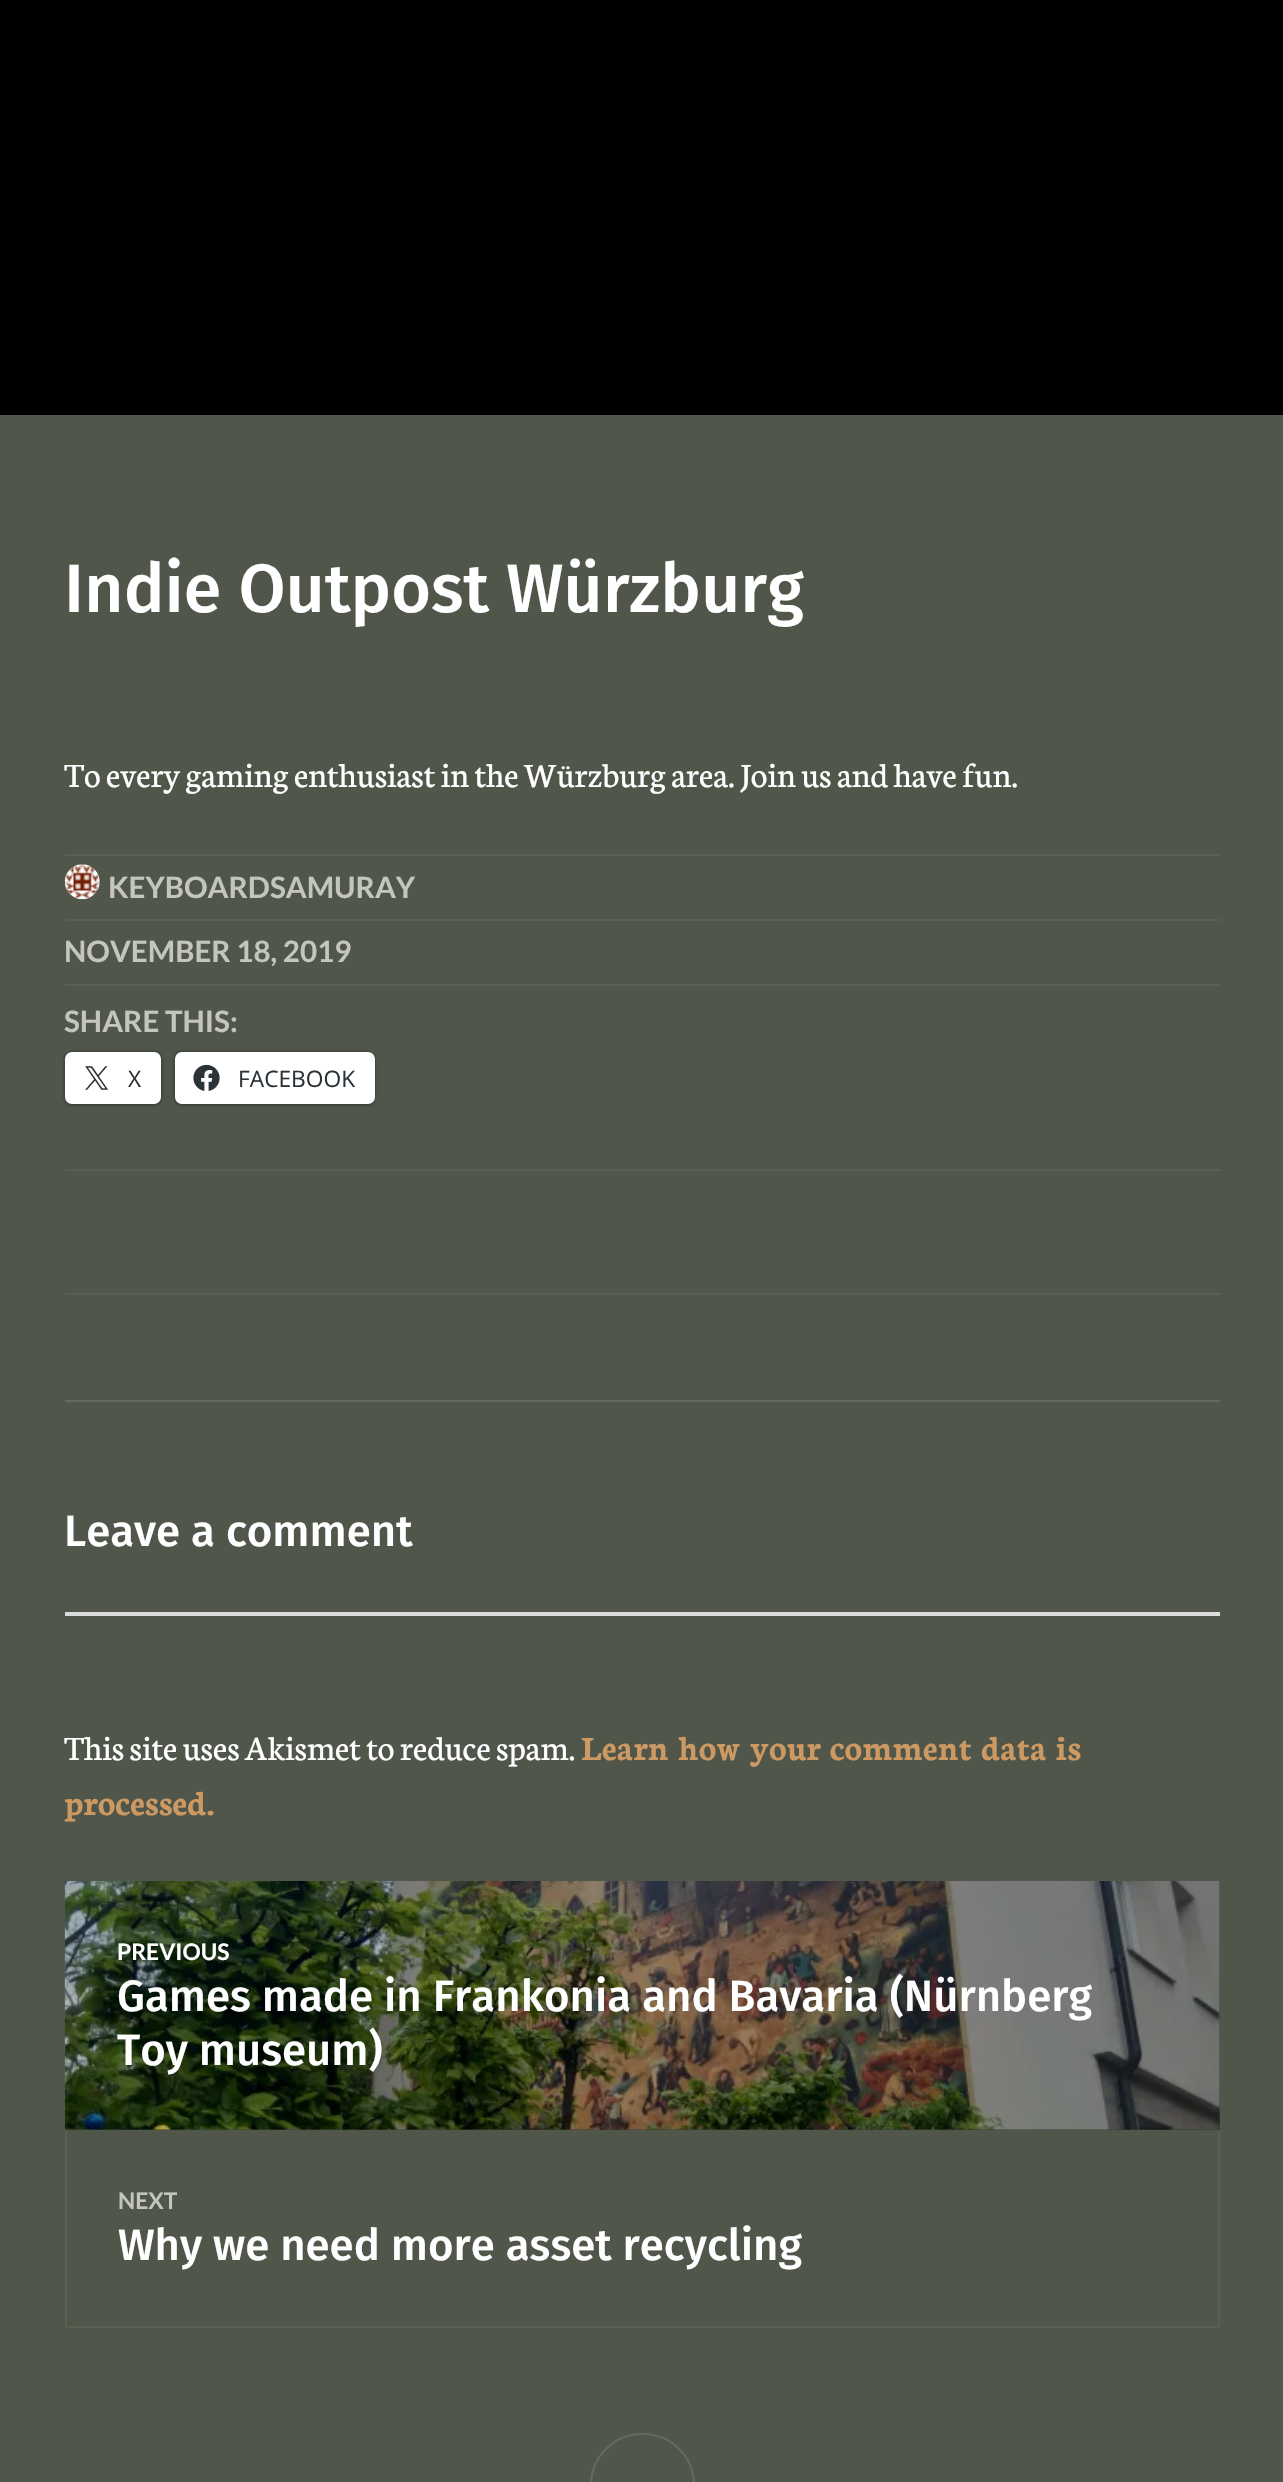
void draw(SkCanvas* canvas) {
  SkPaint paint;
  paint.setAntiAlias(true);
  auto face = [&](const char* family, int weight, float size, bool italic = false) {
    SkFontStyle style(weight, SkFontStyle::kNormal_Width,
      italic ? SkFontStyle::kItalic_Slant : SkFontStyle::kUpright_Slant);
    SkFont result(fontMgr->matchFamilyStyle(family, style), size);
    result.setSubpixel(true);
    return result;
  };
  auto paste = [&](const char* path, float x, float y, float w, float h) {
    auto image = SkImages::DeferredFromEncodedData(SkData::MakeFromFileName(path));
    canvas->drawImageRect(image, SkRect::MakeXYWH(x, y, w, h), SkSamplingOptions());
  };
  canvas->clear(0xff50564a);
  {
    const struct { float x, y, w, h; SkColor color; } items[] = {
      {65, 1881, 1155, 249, 0xff383c34},
      {0, 0, 1283, 415, 0xff000000},
      {65, 854, 1155, 2, 0xff596052},
    };
    for (auto [x, y, w, h, color] : items) {
      paint.setColor(color);
      canvas->drawRect(SkRect::MakeXYWH(x, y, w, h), paint);
    }
  }
  paste("img/1.png", 64, 864, 36, 36);
  {
    const struct { float x, y, w, h; SkColor color; } items[] = {
      {65, 919, 1155, 2, 0xff596052},
      {65, 984, 1155, 2, 0xff596052},
      {65, 1169, 1155, 2, 0xff596052},
    };
    for (auto [x, y, w, h, color] : items) {
      paint.setColor(color);
      canvas->drawRect(SkRect::MakeXYWH(x, y, w, h), paint);
    }
  }
  paint.setStroke(true);
  paint.setStrokeWidth(2);
  paint.setColor(0xff464c41);
  canvas->drawRoundRect(SkRect::MakeXYWH(64, 1051, 98, 54), 8, 8, paint);
  paint.setStroke(false);
  paint.setColor(0x1f000000);
  paint.setMaskFilter(SkMaskFilter::MakeBlur(kNormal_SkBlurStyle, 2));
  canvas->drawRoundRect(SkRect::MakeXYWH(65, 1054, 96, 52), 7, 7, paint);
  paint.setMaskFilter(nullptr);
  paint.setColor(0xffffffff);
  canvas->drawRoundRect(SkRect::MakeXYWH(65, 1052, 96, 52), 7, 7, paint);
  paste("img/2.png", 85, 1066, 24, 24);
  paint.setStroke(true);
  paint.setColor(0xff464c41);
  canvas->drawRoundRect(SkRect::MakeXYWH(174, 1051, 201, 54), 8, 8, paint);
  paint.setStroke(false);
  paint.setColor(0x1f000000);
  paint.setMaskFilter(SkMaskFilter::MakeBlur(kNormal_SkBlurStyle, 2));
  canvas->drawRoundRect(SkRect::MakeXYWH(175, 1054, 200, 52), 7, 7, paint);
  paint.setMaskFilter(nullptr);
  paint.setColor(0xffffffff);
  canvas->drawRoundRect(SkRect::MakeXYWH(175, 1052, 200, 52), 7, 7, paint);
  paste("img/3.png", 193, 1064, 27, 27);
  {
    const struct { float x, y, w, h; SkColor color; } items[] = {
      {65, 1293, 1155, 2, 0xff596052},
      {65, 1400, 1155, 2, 0xff626b5b},
      {65, 1612, 1155, 4, 0xffdcdcde},
    };
    for (auto [x, y, w, h, color] : items) {
      paint.setColor(color);
      canvas->drawRect(SkRect::MakeXYWH(x, y, w, h), paint);
    }
  }
  paste("img/4.png", 64, 1881, 1156, 249);
  {
    const struct { float x, y, w, h; SkColor color; } items[] = {
      {1218, 2130, 2, 198, 0xff596052},
      {65, 2326, 1155, 2, 0xff596052},
      {65, 2130, 2, 198, 0xff596052},
    };
    for (auto [x, y, w, h, color] : items) {
      paint.setColor(color);
      canvas->drawRect(SkRect::MakeXYWH(x, y, w, h), paint);
    }
  }
  paint.setStroke(true);
  paint.setColor(0xff626b5b);
  canvas->drawRoundRect(SkRect::MakeXYWH(591, 2434, 103, 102), 51.5f, 51.5f, paint);
  auto f0 = face("Fira Sans", 500, 68.25f);
  paint.setStroke(false);
  paint.setColor(0xffffffff);
  canvas->drawString("Indie Outpost Würzburg", 64, 612, f0, paint);
  auto f1 = face("Neuton", 400, 36.4f);
  canvas->drawString("To every gaming enthusiast in the Würzburg area. Join us and have fun.", 64, 787, f1, paint);
  auto f2 = face("Lato", 700, 29.5f);
  paint.setColor(0xffc3c5be);
  {
    const struct { const char* s; float x, y; } items[] = {
      {"KEYBOARDSAMURAY", 108, 898},
      {"NOVEMBER 18, 2019", 64, 962},
      {"SHARE THIS:", 64, 1032},
    };
    for (auto [s, x, y] : items) {
      canvas->drawString(s, x, y, f2, paint);
    }
  }
  auto f3 = face("Open Sans", 400, 22.75f);
  paint.setColor(0xff2c3338);
  canvas->drawString("X", 128, 1087, f3, paint);
  canvas->drawString("FACEBOOK", 238, 1087, f3, paint);
  auto f4 = face("Fira Sans", 500, 43.75f);
  paint.setColor(0xffffffff);
  canvas->drawString("Leave a comment", 64, 1546, f4, paint);
  canvas->drawString("This site uses Akismet to reduce spam.", 64, 1760, f1, paint);
  auto f5 = face("Neuton", 700, 36.4f);
  paint.setColor(0xffcc9962);
  canvas->drawString("Learn how your comment data is", 581, 1760, f5, paint);
  canvas->drawString("processed.", 64, 1815, f5, paint);
  auto f6 = face("Lato", 700, 22.75f);
  paint.setColor(0xffffffff);
  canvas->drawString("PREVIOUS", 117, 1960, f6, paint);
  canvas->drawString("Games made in Frankonia and Bavaria (Nürnberg", 117, 2011, f4, paint);
  canvas->drawString("Toy museum)", 117, 2065, f4, paint);
  paint.setColor(0xffc3c5be);
  canvas->drawString("NEXT", 118, 2209, f6, paint);
  paint.setColor(0xffffffff);
  canvas->drawString("Why we need more asset recycling", 118, 2260, f4, paint);
}
